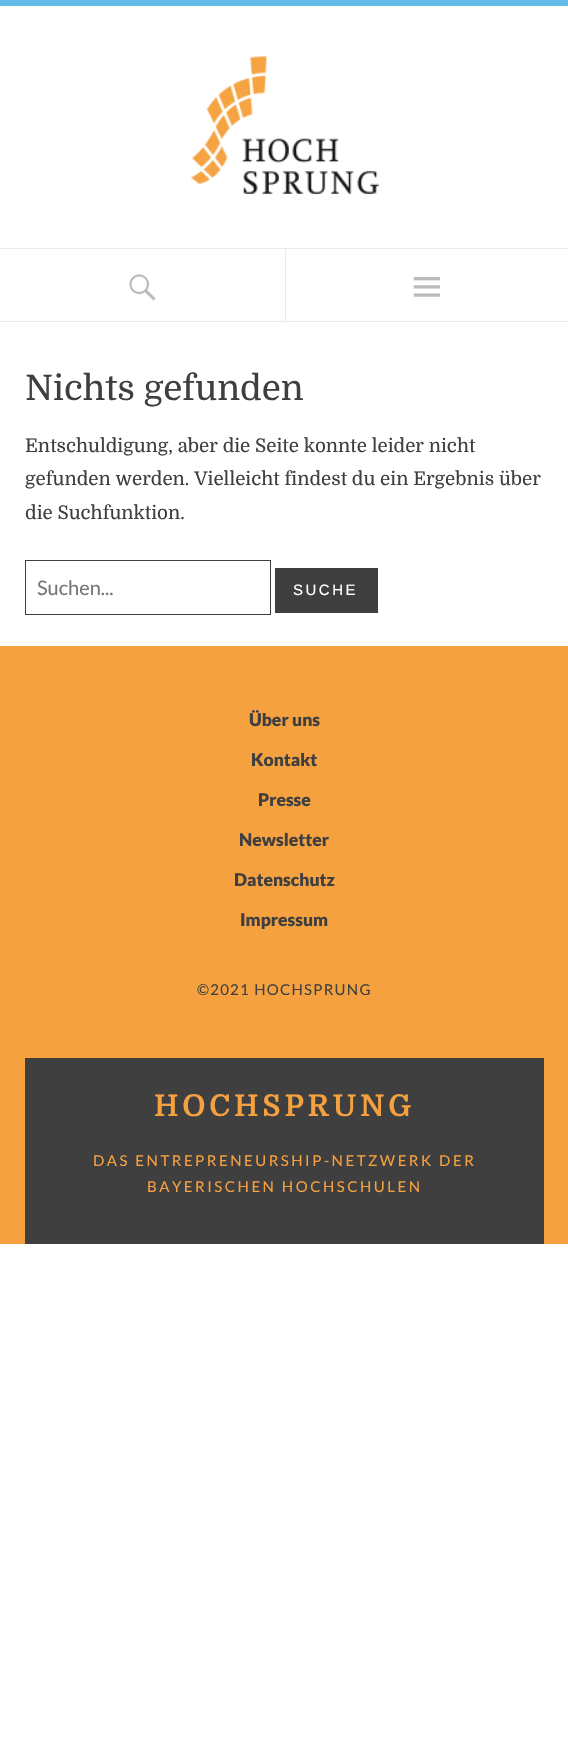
void draw(SkCanvas* canvas) {
  SkPaint paint;
  paint.setAntiAlias(true);
  auto face = [&](const char* family, int weight, float size, bool italic = false) {
    SkFontStyle style(weight, SkFontStyle::kNormal_Width,
      italic ? SkFontStyle::kItalic_Slant : SkFontStyle::kUpright_Slant);
    SkFont result(fontMgr->matchFamilyStyle(family, style), size);
    result.setSubpixel(true);
    return result;
  };
  auto writeSpaced = [&](const char* s, float x, float y, const SkFont& font, const SkPaint& ink, float letter, float word) {
    std::vector<SkGlyphID> glyphs(font.countText(s, strlen(s), SkTextEncoding::kUTF8));
    std::vector<float> xs(glyphs.size());
    font.textToGlyphs(s, strlen(s), SkTextEncoding::kUTF8, glyphs);
    font.getXPos(glyphs, xs, x);
    float extra = 0;
    for (size_t i = 0; i < glyphs.size(); i++) {
      xs[i] += extra;
      extra += letter + word * (glyphs[i] == font.unicharToGlyph(' '));
    }
    canvas->drawTextBlob(SkTextBlob::MakeFromPosHGlyphs(glyphs, xs, y, font), 0, 0, ink);
  };
  auto paste = [&](const char* path, float x, float y, float w, float h) {
    auto image = SkImages::DeferredFromEncodedData(SkData::MakeFromFileName(path));
    canvas->drawImageRect(image, SkRect::MakeXYWH(x, y, w, h), SkSamplingOptions());
  };
  canvas->clear(0xffffffff);
  paint.setColor(0xff63b9e8);
  canvas->drawRect(SkRect::MakeXYWH(0, 0, 568, 6), paint);
  paste("img/1.png", 191, 56, 188, 139);
  paint.setColor(0xffeaeaea);
  canvas->drawRect(SkRect::MakeXYWH(0, 248, 568, 1), paint);
  canvas->drawRect(SkRect::MakeXYWH(0, 321, 568, 1), paint);
  paste("img/2.png", 129, 274, 27, 27);
  canvas->drawRect(SkRect::MakeXYWH(285, 248, 1, 75), paint);
  paste("img/3.png", 413, 277, 27, 20);
  paint.setStroke(true);
  paint.setStrokeWidth(1);
  paint.setColor(0xff3f3f3f);
  canvas->drawRect(SkRect::MakeXYWH(25.5f, 560.5f, 245, 54), paint);
  paint.setStroke(false);
  {
    const struct { float x, y, w, h; SkColor color; } items[] = {
      {275, 568, 103, 45, 0xff3f3f3f},
      {0, 646, 568, 598, 0xfff6a140},
      {25, 1058, 519, 186, 0xff3f3f3f},
    };
    for (auto [x, y, w, h, color] : items) {
      paint.setColor(color);
      canvas->drawRect(SkRect::MakeXYWH(x, y, w, h), paint);
    }
  }
  auto f0 = face("Domine", 400, 35);
  canvas->drawString("Nichts gefunden", 25, 400, f0, paint);
  auto f1 = face("Domine", 400, 18.75f);
  {
    const struct { const char* s; float x, y; } items[] = {
      {"Entschuldigung, aber die Seite konnte leider nicht", 25, 452},
      {"gefunden werden. Vielleicht findest du ein Ergebnis über", 25, 485},
      {"die Suchfunktion.", 25, 519},
    };
    for (auto [s, x, y] : items) {
      canvas->drawString(s, x, y, f1, paint);
    }
  }
  auto f2 = face("Lato", 400, 20);
  paint.setColor(0xff757575);
  canvas->drawString("Suchen...", 37, 595, f2, paint);
  auto f3 = face("Liberation Sans", 400, 15);
  paint.setColor(0xffffffff);
  writeSpaced("SUCHE", 293, 595, f3, paint, 2.5f, 0);
  auto f4 = face("Lato", 900, 17.5f);
  paint.setColor(0xff3f3f3f);
  {
    const struct { const char* s; float x, y; } items[] = {
      {"Über uns", 249, 726},
      {"Kontakt", 251, 766},
      {"Presse", 258, 806},
      {"Newsletter", 239, 846},
      {"Datenschutz", 234, 886},
      {"Impressum", 240, 926},
    };
    for (auto [s, x, y] : items) {
      canvas->drawString(s, x, y, f4, paint);
    }
  }
  auto f5 = face("Lato", 400, 15);
  writeSpaced("©2021 HOCHSPRUNG", 197, 995, f5, paint, 1.25f, 0);
  auto f6 = face("Domine", 700, 30);
  paint.setColor(0xfff6a140);
  writeSpaced("HOCHSPRUNG", 154, 1116, f6, paint, 3.75f, 0);
  writeSpaced("DAS ENTREPRENEURSHIP-NETZWERK DER", 93, 1166, f5, paint, 2.5f, 0);
  writeSpaced("BAYERISCHEN HOCHSCHULEN", 147, 1192, f5, paint, 2.5f, 0);
}
